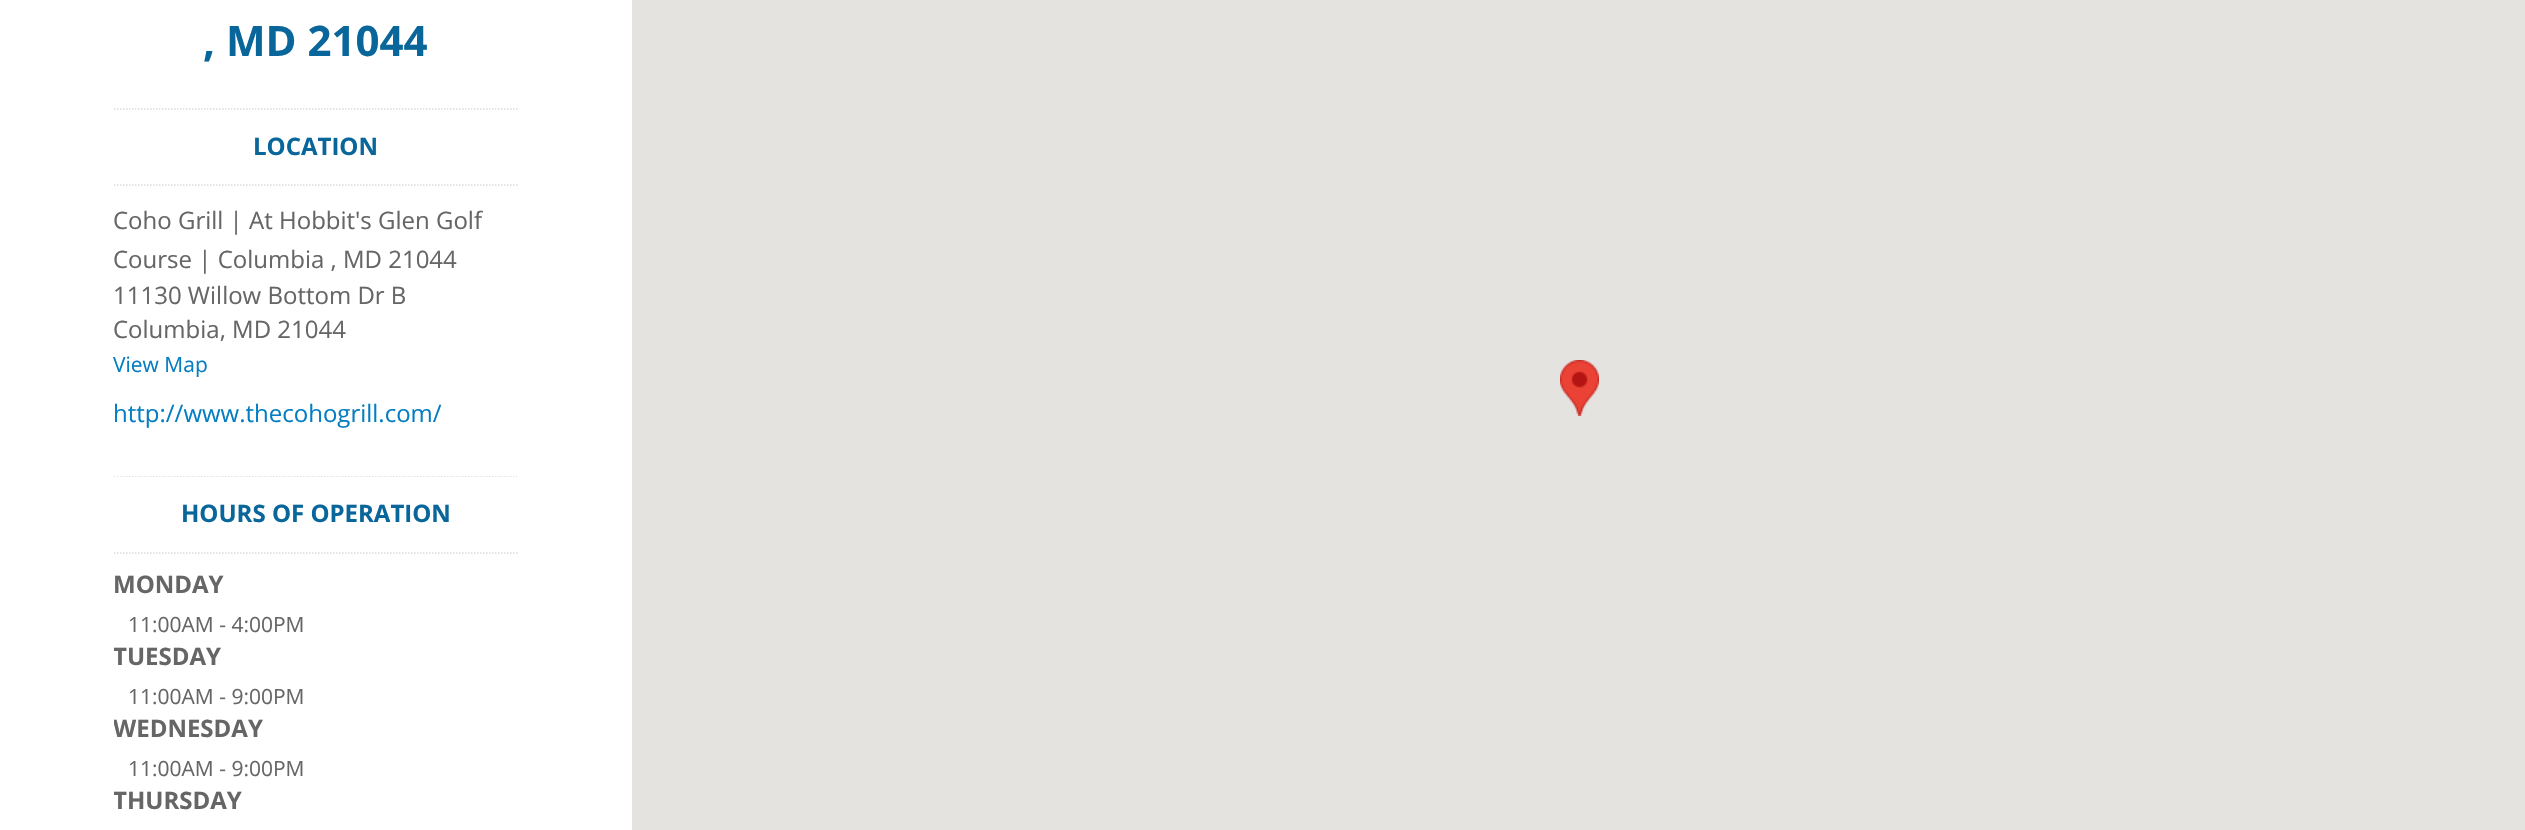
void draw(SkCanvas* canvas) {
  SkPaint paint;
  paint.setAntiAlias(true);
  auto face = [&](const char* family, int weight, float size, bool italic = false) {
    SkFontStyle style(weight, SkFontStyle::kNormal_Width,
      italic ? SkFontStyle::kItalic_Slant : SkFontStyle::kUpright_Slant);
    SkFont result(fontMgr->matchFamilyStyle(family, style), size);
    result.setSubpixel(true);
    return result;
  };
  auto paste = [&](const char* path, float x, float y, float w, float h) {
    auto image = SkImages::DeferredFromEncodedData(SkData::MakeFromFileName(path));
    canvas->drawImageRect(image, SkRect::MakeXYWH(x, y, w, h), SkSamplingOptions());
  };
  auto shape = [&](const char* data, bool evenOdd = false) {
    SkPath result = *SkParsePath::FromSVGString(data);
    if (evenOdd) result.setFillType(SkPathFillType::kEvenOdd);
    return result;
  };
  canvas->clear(0xffffffff);
  paint.setStroke(true);
  paint.setStrokeWidth(1.5f);
  paint.setColor(0xffdadada);
  paint.setPathEffect(SkDashPathEffect::Make({{1.5f, 1.5f}}, 0));
  canvas->drawPath(shape("M114 109H519"), paint);
  paint.setPathEffect(nullptr);
  paint.setPathEffect(SkDashPathEffect::Make({{1.5f, 1.5f}}, 0));
  canvas->drawPath(shape("M114 185H519"), paint);
  paint.setPathEffect(nullptr);
  canvas->save();
  canvas->clipRect(SkRect::MakeXYWH(114, 476, 405, 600));
  paint.setPathEffect(SkDashPathEffect::Make({{1.5f, 1.5f}}, 0));
  canvas->drawPath(shape("M114 476H519"), paint);
  paint.setPathEffect(nullptr);
  canvas->restore();
  paint.setPathEffect(SkDashPathEffect::Make({{1.5f, 1.5f}}, 0));
  canvas->drawPath(shape("M114 553H519"), paint);
  paint.setPathEffect(nullptr);
  paint.setStroke(false);
  paint.setColor(0xffe5e3df);
  canvas->drawRect(SkRect::MakeXYWH(632, 0, 1893, 830), paint);
  paste("img/1.png", 1560, 360, 39, 56);
  auto f0 = face("Open Sans", 700, 42);
  paint.setColor(0xff09669a);
  canvas->drawString(", MD 21044", 203, 56, f0, paint);
  auto f1 = face("Open Sans", 700, 24);
  canvas->drawString("LOCATION", 253, 155, f1, paint);
  auto f2 = face("Open Sans", 400, 24);
  paint.setColor(0xff666666);
  {
    const struct { const char* s; float x, y; } items[] = {
      {"Coho Grill | At Hobbit's Glen Golf", 113, 229},
      {"Course | Columbia , MD 21044", 113, 268},
      {"11130 Willow Bottom Dr B", 113, 304},
      {"Columbia, MD 21044", 113, 338},
    };
    for (auto [s, x, y] : items) {
      canvas->drawString(s, x, y, f2, paint);
    }
  }
  auto f3 = face("Open Sans", 400, 21);
  paint.setColor(0xff057ec1);
  canvas->drawString("View Map", 113, 372, f3, paint);
  canvas->drawString("http://www.thecohogrill.com/", 113, 422, f2, paint);
  paint.setColor(0xff09669a);
  canvas->drawString("HOURS OF OPERATION", 181, 522, f1, paint);
  paint.setColor(0xff666666);
  canvas->drawString("MONDAY", 113, 593, f1, paint);
  canvas->drawString("11:00AM - 4:00PM", 128, 632, f3, paint);
  canvas->save();
  canvas->clipRect(SkRect::MakeXYWH(114, 476, 405, 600));
  canvas->drawString("TUESDAY", 113, 665, f1, paint);
  canvas->restore();
  canvas->drawString("11:00AM - 9:00PM", 128, 704, f3, paint);
  canvas->save();
  canvas->clipRect(SkRect::MakeXYWH(114, 476, 405, 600));
  canvas->drawString("WEDNESDAY", 113, 737, f1, paint);
  canvas->restore();
  canvas->drawString("11:00AM - 9:00PM", 128, 776, f3, paint);
  canvas->save();
  canvas->clipRect(SkRect::MakeXYWH(114, 476, 405, 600));
  canvas->drawString("THURSDAY", 113, 809, f1, paint);
  canvas->restore();
}
